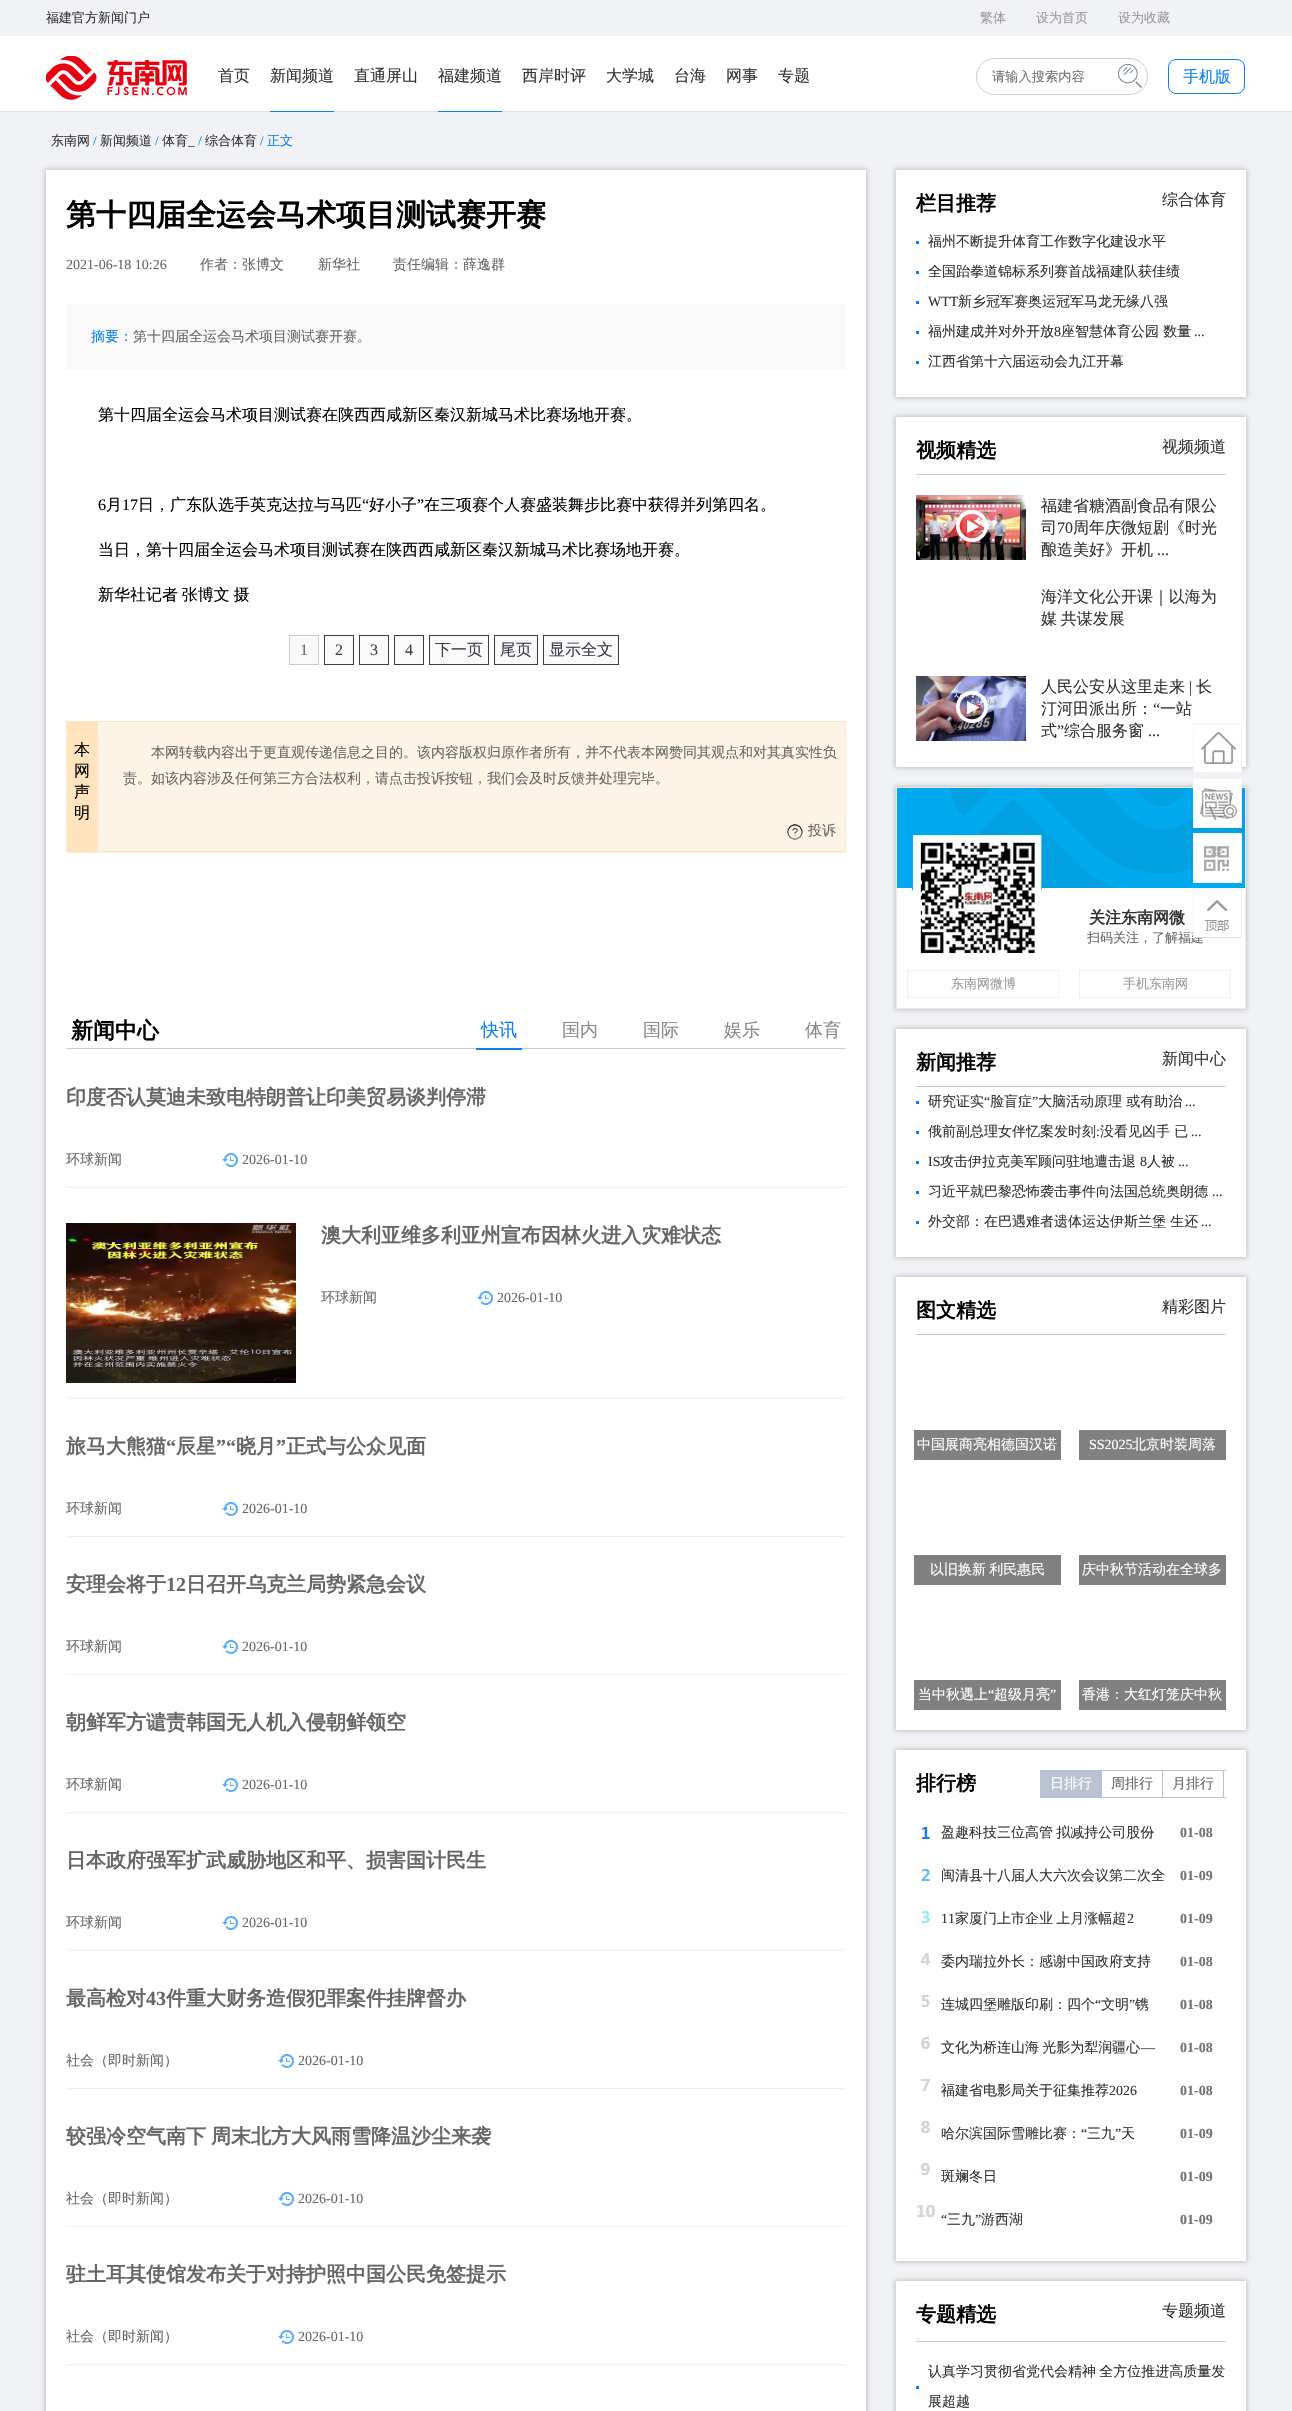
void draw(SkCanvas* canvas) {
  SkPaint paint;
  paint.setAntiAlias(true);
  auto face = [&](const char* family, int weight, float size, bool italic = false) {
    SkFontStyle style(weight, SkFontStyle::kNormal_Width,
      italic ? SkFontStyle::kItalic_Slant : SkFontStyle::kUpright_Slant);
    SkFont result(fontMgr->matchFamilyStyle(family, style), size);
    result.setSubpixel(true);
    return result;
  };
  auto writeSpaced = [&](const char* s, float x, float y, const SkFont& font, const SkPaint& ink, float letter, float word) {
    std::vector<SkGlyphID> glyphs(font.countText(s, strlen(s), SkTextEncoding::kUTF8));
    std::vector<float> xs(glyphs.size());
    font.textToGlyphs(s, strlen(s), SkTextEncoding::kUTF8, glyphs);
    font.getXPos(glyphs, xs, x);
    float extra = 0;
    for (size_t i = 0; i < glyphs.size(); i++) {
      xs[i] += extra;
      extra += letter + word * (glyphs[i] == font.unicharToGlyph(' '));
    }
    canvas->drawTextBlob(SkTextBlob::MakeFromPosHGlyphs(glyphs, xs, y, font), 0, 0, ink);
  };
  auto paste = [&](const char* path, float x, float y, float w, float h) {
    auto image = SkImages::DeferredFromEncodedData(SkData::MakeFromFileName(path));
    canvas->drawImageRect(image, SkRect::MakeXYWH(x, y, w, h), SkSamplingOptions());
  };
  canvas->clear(0xfff0f2f5);
  paint.setColor(0xffffffff);
  canvas->drawRect(SkRect::MakeXYWH(0, 36, 1292, 75), paint);
  paint.setColor(0xffe0e0e0);
  canvas->drawRect(SkRect::MakeXYWH(0, 111, 1292, 1), paint);
  paste("img/1.png", 46, 56, 142, 44);
  paint.setColor(0xff0c7ff2);
  canvas->drawRect(SkRect::MakeXYWH(270, 111, 64, 1), paint);
  canvas->drawRect(SkRect::MakeXYWH(438, 111, 64, 1), paint);
  paint.setStroke(true);
  paint.setStrokeWidth(1);
  paint.setColor(0xffcfcdcd);
  canvas->drawRoundRect(SkRect::MakeXYWH(976.5f, 58.5f, 171, 36), 18, 18, paint);
  paint.setStroke(false);
  paint.setColor(0xffffffff);
  canvas->drawRect(SkRect::MakeXYWH(992, 59, 2, 35), paint);
  paste("img/2.png", 1118, 64, 24, 24);
  paint.setStroke(true);
  paint.setColor(0xff0c7ff2);
  canvas->drawRoundRect(SkRect::MakeXYWH(1168.5f, 59.5f, 76, 34), 7.5f, 7.5f, paint);
  paint.setStroke(false);
  paint.setColor(0x808e8e8e);
  paint.setMaskFilter(SkMaskFilter::MakeBlur(kNormal_SkBlurStyle, 2.5f));
  canvas->drawRect(SkRect::MakeXYWH(45, 169, 822, 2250), paint);
  paint.setMaskFilter(nullptr);
  paint.setColor(0xffffffff);
  canvas->drawRect(SkRect::MakeXYWH(46, 170, 820, 2241), paint);
  paint.setColor(0xfff9f9f9);
  canvas->drawRect(SkRect::MakeXYWH(66, 304, 780, 66), paint);
  canvas->drawRect(SkRect::MakeXYWH(289.5f, 635.5f, 29, 29), paint);
  paint.setStroke(true);
  paint.setColor(0xffbdcfdd);
  canvas->drawRect(SkRect::MakeXYWH(289.5f, 635.5f, 29, 29), paint);
  paint.setStroke(false);
  paint.setColor(0xfff9f9f9);
  canvas->drawRect(SkRect::MakeXYWH(324.5f, 635.5f, 29, 29), paint);
  paint.setStroke(true);
  paint.setColor(0xff393d49);
  canvas->drawRect(SkRect::MakeXYWH(324.5f, 635.5f, 29, 29), paint);
  paint.setStroke(false);
  paint.setColor(0xfff9f9f9);
  canvas->drawRect(SkRect::MakeXYWH(359.5f, 635.5f, 29, 29), paint);
  paint.setStroke(true);
  paint.setColor(0xff393d49);
  canvas->drawRect(SkRect::MakeXYWH(359.5f, 635.5f, 29, 29), paint);
  paint.setStroke(false);
  paint.setColor(0xfff9f9f9);
  canvas->drawRect(SkRect::MakeXYWH(394.5f, 635.5f, 29, 29), paint);
  paint.setStroke(true);
  paint.setColor(0xff393d49);
  canvas->drawRect(SkRect::MakeXYWH(394.5f, 635.5f, 29, 29), paint);
  paint.setStroke(false);
  paint.setColor(0xfff9f9f9);
  canvas->drawRect(SkRect::MakeXYWH(429.5f, 635.5f, 59, 29), paint);
  paint.setStroke(true);
  paint.setColor(0xff393d49);
  canvas->drawRect(SkRect::MakeXYWH(429.5f, 635.5f, 59, 29), paint);
  paint.setStroke(false);
  paint.setColor(0xfff9f9f9);
  canvas->drawRect(SkRect::MakeXYWH(494.5f, 635.5f, 43, 29), paint);
  paint.setStroke(true);
  paint.setColor(0xff393d49);
  canvas->drawRect(SkRect::MakeXYWH(494.5f, 635.5f, 43, 29), paint);
  paint.setStroke(false);
  paint.setColor(0xfff9f9f9);
  canvas->drawRect(SkRect::MakeXYWH(543.5f, 635.5f, 75, 29), paint);
  paint.setStroke(true);
  paint.setColor(0xff393d49);
  canvas->drawRect(SkRect::MakeXYWH(543.5f, 635.5f, 75, 29), paint);
  paste("img/3.png", 66, 720, 780, 133);
  paint.setStroke(false);
  {
    const struct { float x, y, w, h; SkColor color; } items[] = {
      {66, 1048, 780, 1, 0xffcacaca},
      {476, 1048, 46, 2, 0xff0c7ff2},
      {66, 1187, 780, 1, 0xffeeeeee},
    };
    for (auto [x, y, w, h, color] : items) {
      paint.setColor(color);
      canvas->drawRect(SkRect::MakeXYWH(x, y, w, h), paint);
    }
  }
  paste("img/4.png", 222, 1153, 16, 14);
  canvas->drawRect(SkRect::MakeXYWH(66, 1398, 780, 1), paint);
  paste("img/5.png", 66, 1223, 230, 160);
  paste("img/4.png", 477, 1291, 16, 14);
  canvas->drawRect(SkRect::MakeXYWH(66, 1536, 780, 1), paint);
  paste("img/4.png", 222, 1502, 16, 14);
  canvas->drawRect(SkRect::MakeXYWH(66, 1674, 780, 1), paint);
  paste("img/4.png", 222, 1640, 16, 14);
  canvas->drawRect(SkRect::MakeXYWH(66, 1812, 780, 1), paint);
  paste("img/4.png", 222, 1778, 16, 14);
  canvas->drawRect(SkRect::MakeXYWH(66, 1950, 780, 1), paint);
  paste("img/4.png", 222, 1916, 16, 14);
  canvas->drawRect(SkRect::MakeXYWH(66, 2088, 780, 1), paint);
  paste("img/4.png", 278, 2054, 16, 14);
  canvas->drawRect(SkRect::MakeXYWH(66, 2226, 780, 1), paint);
  paste("img/4.png", 278, 2192, 16, 14);
  canvas->drawRect(SkRect::MakeXYWH(66, 2364, 780, 1), paint);
  paste("img/4.png", 278, 2330, 16, 14);
  paint.setColor(0x808e8e8e);
  paint.setMaskFilter(SkMaskFilter::MakeBlur(kNormal_SkBlurStyle, 2.5f));
  canvas->drawRect(SkRect::MakeXYWH(895, 169, 352, 229), paint);
  paint.setMaskFilter(nullptr);
  {
    const struct { float x, y, w, h; SkColor color; } items[] = {
      {896, 170, 350, 227, 0xffffffff},
      {916, 241, 3, 3, 0xff0c7ff2},
      {916, 271, 3, 3, 0xff0c7ff2},
      {916, 301, 3, 3, 0xff0c7ff2},
      {916, 331, 3, 3, 0xff0c7ff2},
      {916, 361, 3, 3, 0xff0c7ff2},
    };
    for (auto [x, y, w, h, color] : items) {
      paint.setColor(color);
      canvas->drawRect(SkRect::MakeXYWH(x, y, w, h), paint);
    }
  }
  paint.setColor(0x808e8e8e);
  paint.setMaskFilter(SkMaskFilter::MakeBlur(kNormal_SkBlurStyle, 2.5f));
  canvas->drawRect(SkRect::MakeXYWH(895, 416, 352, 352), paint);
  paint.setMaskFilter(nullptr);
  paint.setColor(0xffffffff);
  canvas->drawRect(SkRect::MakeXYWH(896, 417, 350, 350), paint);
  paint.setColor(0xffcacaca);
  canvas->drawRect(SkRect::MakeXYWH(916, 474, 310, 1), paint);
  paste("img/6.png", 916, 495, 110, 65);
  paste("img/7.png", 956, 510, 32, 32);
  paste("img/8.png", 916, 676, 110, 65);
  paste("img/9.png", 956, 691, 32, 32);
  paint.setColor(0x808e8e8e);
  paint.setMaskFilter(SkMaskFilter::MakeBlur(kNormal_SkBlurStyle, 2.5f));
  canvas->drawRect(SkRect::MakeXYWH(895, 786, 352, 224), paint);
  paint.setMaskFilter(nullptr);
  paint.setColor(0xffffffff);
  canvas->drawRect(SkRect::MakeXYWH(897, 888, 348, 120), paint);
  paste("img/10.png", 897, 788, 348, 100);
  paint.setStroke(true);
  paint.setColor(0xffececec);
  canvas->drawRect(SkRect::MakeXYWH(896.5f, 787.5f, 349, 221), paint);
  paste("img/11.png", 912, 834, 130, 120);
  paint.setColor(0xfff0f0f0);
  canvas->drawRect(SkRect::MakeXYWH(907.5f, 970.5f, 151, 27), paint);
  canvas->drawRect(SkRect::MakeXYWH(1079.5f, 970.5f, 151, 27), paint);
  paint.setStroke(false);
  paint.setColor(0x808e8e8e);
  paint.setMaskFilter(SkMaskFilter::MakeBlur(kNormal_SkBlurStyle, 2.5f));
  canvas->drawRect(SkRect::MakeXYWH(895, 1028, 352, 230), paint);
  paint.setMaskFilter(nullptr);
  {
    const struct { float x, y, w, h; SkColor color; } items[] = {
      {896, 1029, 350, 228, 0xffffffff},
      {916, 1086, 310, 1, 0xffcacaca},
      {916, 1101, 3, 3, 0xff0c7ff2},
      {916, 1131, 3, 3, 0xff0c7ff2},
      {916, 1161, 3, 3, 0xff0c7ff2},
      {916, 1191, 3, 3, 0xff0c7ff2},
      {916, 1221, 3, 3, 0xff0c7ff2},
    };
    for (auto [x, y, w, h, color] : items) {
      paint.setColor(color);
      canvas->drawRect(SkRect::MakeXYWH(x, y, w, h), paint);
    }
  }
  paint.setColor(0x808e8e8e);
  paint.setMaskFilter(SkMaskFilter::MakeBlur(kNormal_SkBlurStyle, 2.5f));
  canvas->drawRect(SkRect::MakeXYWH(895, 1276, 352, 455), paint);
  paint.setMaskFilter(nullptr);
  {
    const struct { float x, y, w, h; SkColor color; } items[] = {
      {896, 1277, 350, 453, 0xffffffff},
      {916, 1334, 310, 1, 0xffcacaca},
      {914, 1430, 147, 30, 0xff808080},
      {1079, 1430, 147, 30, 0xff808080},
      {914, 1555, 147, 30, 0xff808080},
      {1079, 1555, 147, 30, 0xff808080},
      {914, 1680, 147, 30, 0xff808080},
      {1079, 1680, 147, 30, 0xff808080},
    };
    for (auto [x, y, w, h, color] : items) {
      paint.setColor(color);
      canvas->drawRect(SkRect::MakeXYWH(x, y, w, h), paint);
    }
  }
  paint.setColor(0x808e8e8e);
  paint.setMaskFilter(SkMaskFilter::MakeBlur(kNormal_SkBlurStyle, 2.5f));
  canvas->drawRect(SkRect::MakeXYWH(895, 1749, 352, 513), paint);
  paint.setMaskFilter(nullptr);
  {
    const struct { float x, y, w, h; SkColor color; } items[] = {
      {896, 1750, 350, 511, 0xffffffff},
      {1040, 1770, 186, 1, 0xffb8c2d1},
      {1040, 1797, 186, 1, 0xffb8c2d1},
      {1040, 1770, 1, 28, 0xffb8c2d1},
      {1041, 1771, 61, 26, 0xffb8c2d1},
      {1162, 1771, 1, 26, 0xffb8c2d1},
      {1223, 1771, 1, 26, 0xffb8c2d1},
    };
    for (auto [x, y, w, h, color] : items) {
      paint.setColor(color);
      canvas->drawRect(SkRect::MakeXYWH(x, y, w, h), paint);
    }
  }
  paste("img/12.png", 916, 1825, 19, 392);
  paint.setColor(0x808e8e8e);
  paint.setMaskFilter(SkMaskFilter::MakeBlur(kNormal_SkBlurStyle, 2.5f));
  canvas->drawRect(SkRect::MakeXYWH(895, 2280, 352, 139), paint);
  paint.setMaskFilter(nullptr);
  {
    const struct { float x, y, w, h; SkColor color; } items[] = {
      {896, 2281, 350, 130, 0xffffffff},
      {916, 2341, 310, 1, 0xffcacaca},
      {916, 2386, 3, 3, 0xff0c7ff2},
    };
    for (auto [x, y, w, h, color] : items) {
      paint.setColor(color);
      canvas->drawRect(SkRect::MakeXYWH(x, y, w, h), paint);
    }
  }
  paste("img/13.png", 1193, 723, 49, 50);
  paste("img/14.png", 1193, 778, 49, 50);
  paste("img/15.png", 1193, 833, 49, 50);
  auto f0 = face("WenQuanYi Zen Hei", 500, 13);
  paint.setColor(0xff333333);
  canvas->drawString("福建官方新闻门户", 46, 22, f0, paint);
  paint.setColor(0xff999999);
  {
    const struct { const char* s; float x, y; } items[] = {
      {"繁体", 980, 22},
      {"设为首页", 1036, 22},
      {"设为收藏", 1118, 22},
    };
    for (auto [s, x, y] : items) {
      canvas->drawString(s, x, y, f0, paint);
    }
  }
  auto f1 = face("WenQuanYi Zen Hei", 500, 16);
  paint.setColor(0xff333333);
  {
    const struct { const char* s; float x, y; } items[] = {
      {"首页", 218, 81},
      {"新闻频道", 270, 81},
      {"直通屏山", 354, 81},
      {"福建频道", 438, 81},
      {"西岸时评", 522, 81},
      {"大学城", 606, 81},
      {"台海", 674, 81},
      {"网事", 726, 81},
      {"专题", 778, 81},
    };
    for (auto [s, x, y] : items) {
      canvas->drawString(s, x, y, f1, paint);
    }
  }
  auto f2 = face("WenQuanYi Zen Hei", 500, 13.25f);
  paint.setColor(0xff727272);
  canvas->drawString("请输入搜索内容", 992, 81, f2, paint);
  paint.setColor(0xff0c7ff2);
  canvas->drawString("手机版", 1183, 82, f1, paint);
  paint.setColor(0xff333333);
  canvas->drawString("东南网", 51, 145, f0, paint);
  auto f3 = face("Liberation Serif", 400, 13);
  paint.setColor(0xff0c7ff2);
  canvas->drawString("/", 93, 145, f3, paint);
  paint.setColor(0xff333333);
  canvas->drawString("新闻频道", 100, 145, f0, paint);
  paint.setColor(0xff0c7ff2);
  canvas->drawString("/", 155, 145, f3, paint);
  paint.setColor(0xff333333);
  canvas->drawString("体育", 162, 145, f0, paint);
  paint.setColor(0xff0c7ff2);
  canvas->drawString("/", 198, 145, f3, paint);
  paint.setColor(0xff333333);
  canvas->drawString("综合体育", 205, 145, f0, paint);
  paint.setColor(0xff0c7ff2);
  canvas->drawString("/", 260, 145, f3, paint);
  canvas->drawString("正文", 267, 145, f0, paint);
  paint.setColor(0xff333333);
  canvas->drawString("_", 188, 145, f3, paint);
  auto f4 = face("WenQuanYi Zen Hei", 700, 30);
  paint.setColor(0xff000000);
  canvas->drawString("第十四届全运会马术项目测试赛开赛", 66, 225, f4, paint);
  auto f5 = face("Liberation Serif", 400, 14);
  paint.setColor(0xff666666);
  canvas->drawString("2021-06-18 10:26", 66, 269, f5, paint);
  auto f6 = face("WenQuanYi Zen Hei", 500, 14);
  {
    const struct { const char* s; float x, y; } items[] = {
      {"作者：张博文", 200, 269},
      {"新华社", 318, 269},
      {"责任编辑：薛逸群", 393, 269},
    };
    for (auto [s, x, y] : items) {
      canvas->drawString(s, x, y, f6, paint);
    }
  }
  paint.setColor(0xff0c7ff2);
  canvas->drawString("摘要：", 91, 341, f6, paint);
  paint.setColor(0xff666666);
  canvas->drawString("第十四届全运会马术项目测试赛开赛。", 133, 341, f6, paint);
  paint.setColor(0xff000000);
  canvas->drawString("第十四届全运会马术项目测试赛在陕西西咸新区秦汉新城马术比赛场地开赛。", 98, 420, f1, paint);
  auto f7 = face("Liberation Serif", 400, 16);
  canvas->drawString("6", 98, 510, f7, paint);
  canvas->drawString("月", 106, 510, f1, paint);
  canvas->drawString("17", 122, 510, f7, paint);
  canvas->drawString("日，广东队选手英克达拉与马匹", 138, 510, f1, paint);
  canvas->drawString("“", 362, 510, f7, paint);
  canvas->drawString("好小子", 369, 510, f1, paint);
  canvas->drawString("”", 417, 510, f7, paint);
  canvas->drawString("在三项赛个人赛盛装舞步比赛中获得并列第四名。", 424, 510, f1, paint);
  canvas->drawString("当日，第十四届全运会马术项目测试赛在陕西西咸新区秦汉新城马术比赛场地开赛。", 98, 555, f1, paint);
  writeSpaced("新华社记者 张博文 摄", 98, 600, f1, paint, 0, -1);
  paint.setColor(0xff666666);
  canvas->drawString("1", 300, 655, f7, paint);
  paint.setColor(0xff393d49);
  {
    const struct { const char* s; float x, y; } items[] = {
      {"2", 335, 655},
      {"3", 370, 655},
      {"4", 405, 655},
    };
    for (auto [s, x, y] : items) {
      canvas->drawString(s, x, y, f7, paint);
    }
  }
  {
    const struct { const char* s; float x, y; } items[] = {
      {"下一页", 435, 655},
      {"尾页", 500, 655},
      {"显示全文", 549, 655},
    };
    for (auto [s, x, y] : items) {
      canvas->drawString(s, x, y, f1, paint);
    }
  }
  paint.setColor(0xff000000);
  {
    const struct { const char* s; float x, y; } items[] = {
      {"本", 74, 755},
      {"网", 74, 776},
      {"声", 74, 797},
      {"明", 74, 818},
    };
    for (auto [s, x, y] : items) {
      canvas->drawString(s, x, y, f1, paint);
    }
  }
  paint.setColor(0xff666666);
  {
    const struct { const char* s; float x, y; } items[] = {
      {"本网转载内容出于更直观传递信息之目的。该内容版权归原作者所有，并不代表本网赞同其观点和对其真实性负", 151, 757},
      {"责。如该内容涉及任何第三方合法权利，请点击投诉按钮，我们会及时反馈并处理完毕。", 123, 783},
      {"投诉", 808, 835},
    };
    for (auto [s, x, y] : items) {
      canvas->drawString(s, x, y, f6, paint);
    }
  }
  auto f8 = face("WenQuanYi Zen Hei", 700, 22);
  paint.setColor(0xff000000);
  canvas->drawString("新闻中心", 71, 1038, f8, paint);
  auto f9 = face("WenQuanYi Zen Hei", 500, 18);
  paint.setColor(0xff0c7ff2);
  canvas->drawString("快讯", 481, 1036, f9, paint);
  paint.setColor(0xff888888);
  {
    const struct { const char* s; float x, y; } items[] = {
      {"国内", 562, 1036},
      {"国际", 643, 1036},
      {"娱乐", 724, 1036},
      {"体育", 805, 1036},
    };
    for (auto [s, x, y] : items) {
      canvas->drawString(s, x, y, f9, paint);
    }
  }
  auto f10 = face("WenQuanYi Zen Hei", 700, 20);
  paint.setColor(0xff666666);
  canvas->drawString("印度否认莫迪未致电特朗普让印美贸易谈判停滞", 66, 1104, f10, paint);
  canvas->drawString("环球新闻", 66, 1164, f6, paint);
  canvas->drawString("2026-01-10", 242, 1164, f5, paint);
  canvas->drawString("澳大利亚维多利亚州宣布因林火进入灾难状态", 321, 1242, f10, paint);
  canvas->drawString("环球新闻", 321, 1302, f6, paint);
  canvas->drawString("2026-01-10", 497, 1302, f5, paint);
  canvas->drawString("旅马大熊猫", 66, 1453, f10, paint);
  auto f11 = face("Liberation Serif", 700, 20);
  canvas->drawString("“", 166, 1453, f11, paint);
  canvas->drawString("辰星", 176, 1453, f10, paint);
  canvas->drawString("”“", 216, 1453, f11, paint);
  canvas->drawString("晓月", 236, 1453, f10, paint);
  canvas->drawString("”", 276, 1453, f11, paint);
  canvas->drawString("正式与公众见面", 286, 1453, f10, paint);
  canvas->drawString("环球新闻", 66, 1513, f6, paint);
  canvas->drawString("2026-01-10", 242, 1513, f5, paint);
  canvas->drawString("安理会将于", 66, 1591, f10, paint);
  canvas->drawString("12", 166, 1591, f11, paint);
  canvas->drawString("日召开乌克兰局势紧急会议", 186, 1591, f10, paint);
  canvas->drawString("环球新闻", 66, 1651, f6, paint);
  canvas->drawString("2026-01-10", 242, 1651, f5, paint);
  canvas->drawString("朝鲜军方谴责韩国无人机入侵朝鲜领空", 66, 1729, f10, paint);
  canvas->drawString("环球新闻", 66, 1789, f6, paint);
  canvas->drawString("2026-01-10", 242, 1789, f5, paint);
  canvas->drawString("日本政府强军扩武威胁地区和平、损害国计民生", 66, 1867, f10, paint);
  canvas->drawString("环球新闻", 66, 1927, f6, paint);
  canvas->drawString("2026-01-10", 242, 1927, f5, paint);
  canvas->drawString("最高检对", 66, 2005, f10, paint);
  canvas->drawString("43", 146, 2005, f11, paint);
  canvas->drawString("件重大财务造假犯罪案件挂牌督办", 166, 2005, f10, paint);
  canvas->drawString("社会（即时新闻）", 66, 2065, f6, paint);
  canvas->drawString("2026-01-10", 298, 2065, f5, paint);
  writeSpaced("较强冷空气南下 周末北方大风雨雪降温沙尘来袭", 66, 2143, f10, paint, 0, -1);
  canvas->drawString("社会（即时新闻）", 66, 2203, f6, paint);
  canvas->drawString("2026-01-10", 298, 2203, f5, paint);
  canvas->drawString("驻土耳其使馆发布关于对持护照中国公民免签提示", 66, 2281, f10, paint);
  canvas->drawString("社会（即时新闻）", 66, 2341, f6, paint);
  canvas->drawString("2026-01-10", 298, 2341, f5, paint);
  paint.setColor(0xff000000);
  canvas->drawString("栏目推荐", 916, 210, f10, paint);
  paint.setColor(0xff333333);
  canvas->drawString("综合体育", 1162, 205, f1, paint);
  canvas->drawString("福州不断提升体育工作数字化建设水平", 928, 246, f6, paint);
  canvas->drawString("全国跆拳道锦标系列赛首战福建队获佳绩", 928, 276, f6, paint);
  canvas->drawString("WTT", 928, 306, f5, paint);
  canvas->drawString("新乡冠军赛奥运冠军马龙无缘八强", 958, 306, f6, paint);
  canvas->drawString("福州建成并对外开放", 928, 336, f6, paint);
  canvas->drawString("8", 1054, 336, f5, paint);
  canvas->drawString("座智慧体育公园 数量", 1061, 336, f6, paint);
  canvas->drawString("...", 1194, 336, f5, paint);
  canvas->drawString("江西省第十六届运动会九江开幕", 928, 366, f6, paint);
  paint.setColor(0xff000000);
  canvas->drawString("视频精选", 916, 457, f10, paint);
  paint.setColor(0xff333333);
  {
    const struct { const char* s; float x, y; } items[] = {
      {"视频频道", 1162, 452},
      {"福建省糖酒副食品有限公", 1041, 511},
      {"司", 1041, 533},
    };
    for (auto [s, x, y] : items) {
      canvas->drawString(s, x, y, f1, paint);
    }
  }
  canvas->drawString("70", 1057, 533, f7, paint);
  canvas->drawString("周年庆微短剧《时光", 1073, 533, f1, paint);
  canvas->drawString("酿造美好》开机", 1041, 555, f1, paint);
  canvas->drawString("...", 1157, 555, f7, paint);
  canvas->drawString("海洋文化公开课｜以海为", 1041, 602, f1, paint);
  writeSpaced("媒 共谋发展", 1041, 624, f1, paint, 0, -1);
  canvas->drawString("人民公安从这里走来", 1041, 692, f1, paint);
  canvas->drawString("|", 1189, 692, f7, paint);
  canvas->drawString("长", 1196, 692, f1, paint);
  canvas->drawString("汀河田派出所：", 1041, 714, f1, paint);
  canvas->drawString("“", 1153, 714, f7, paint);
  canvas->drawString("一站", 1160, 714, f1, paint);
  canvas->drawString("式", 1041, 736, f1, paint);
  canvas->drawString("”", 1057, 736, f7, paint);
  canvas->drawString("综合服务窗", 1064, 736, f1, paint);
  canvas->drawString("...", 1148, 736, f7, paint);
  auto f12 = face("WenQuanYi Zen Hei", 700, 16);
  canvas->drawString("关注东南网微", 1089, 923, f12, paint);
  paint.setColor(0xff666666);
  canvas->drawString("扫码关注，了解福建", 1087, 942, f0, paint);
  paint.setColor(0xff999999);
  canvas->drawString("东南网微博", 951, 988, f0, paint);
  canvas->drawString("手机东南网", 1123, 988, f0, paint);
  paint.setColor(0xff000000);
  canvas->drawString("新闻推荐", 916, 1069, f10, paint);
  paint.setColor(0xff333333);
  canvas->drawString("新闻中心", 1162, 1064, f1, paint);
  canvas->drawString("研究证实", 928, 1106, f6, paint);
  canvas->drawString("“", 984, 1106, f5, paint);
  canvas->drawString("脸盲症", 990, 1106, f6, paint);
  canvas->drawString("”", 1032, 1106, f5, paint);
  canvas->drawString("大脑活动原理 或有助治", 1038, 1106, f6, paint);
  canvas->drawString("...", 1185, 1106, f5, paint);
  canvas->drawString("俄前副总理女伴忆案发时刻", 928, 1136, f6, paint);
  canvas->drawString(":", 1096, 1136, f5, paint);
  canvas->drawString("没看见凶手 已", 1100, 1136, f6, paint);
  canvas->drawString("...", 1191, 1136, f5, paint);
  canvas->drawString("IS", 928, 1166, f5, paint);
  canvas->drawString("攻击伊拉克美军顾问驻地遭击退", 940, 1166, f6, paint);
  canvas->drawString("8", 1140, 1166, f5, paint);
  canvas->drawString("人被", 1147, 1166, f6, paint);
  canvas->drawString("...", 1178, 1166, f5, paint);
  canvas->drawString("习近平就巴黎恐怖袭击事件向法国总统奥朗德", 928, 1196, f6, paint);
  canvas->drawString("...", 1212, 1196, f5, paint);
  canvas->drawString("外交部：在巴遇难者遗体运达伊斯兰堡 生还", 928, 1226, f6, paint);
  canvas->drawString("...", 1201, 1226, f5, paint);
  paint.setColor(0xff000000);
  canvas->drawString("图文精选", 916, 1317, f10, paint);
  paint.setColor(0xff333333);
  canvas->drawString("精彩图片", 1162, 1312, f1, paint);
  paint.setColor(0xffffffff);
  canvas->drawString("中国展商亮相德国汉诺", 917, 1449, f6, paint);
  canvas->drawString("SS2025", 1089, 1449, f5, paint);
  canvas->drawString("北京时装周落", 1132, 1449, f6, paint);
  writeSpaced("以旧换新 利民惠民", 930, 1574, f6, paint, 0, -1);
  canvas->drawString("庆中秋节活动在全球多", 1082, 1574, f6, paint);
  canvas->drawString("当中秋遇上", 918, 1699, f6, paint);
  canvas->drawString("“", 988, 1699, f5, paint);
  canvas->drawString("超级月亮", 994, 1699, f6, paint);
  canvas->drawString("”", 1050, 1699, f5, paint);
  canvas->drawString("香港：大红灯笼庆中秋", 1082, 1699, f6, paint);
  paint.setColor(0xff000000);
  canvas->drawString("排行榜", 916, 1790, f10, paint);
  paint.setColor(0xffffffff);
  canvas->drawString("日排行", 1050, 1788, f6, paint);
  paint.setColor(0xff666666);
  canvas->drawString("周排行", 1111, 1788, f6, paint);
  canvas->drawString("月排行", 1172, 1788, f6, paint);
  paint.setColor(0xff333333);
  writeSpaced("盈趣科技三位高管 拟减持公司股份", 941, 1837, f6, paint, 0, -1);
  auto f13 = face("Liberation Serif", 700, 14);
  paint.setColor(0xff727272);
  canvas->drawString("01-08", 1180, 1837, f13, paint);
  paint.setColor(0xff333333);
  canvas->drawString("闽清县十八届人大六次会议第二次全", 941, 1880, f6, paint);
  paint.setColor(0xff727272);
  canvas->drawString("01-09", 1180, 1880, f13, paint);
  paint.setColor(0xff333333);
  canvas->drawString("11", 941, 1923, f5, paint);
  writeSpaced("家厦门上市企业 上月涨幅超", 955, 1923, f6, paint, 0, -1);
  canvas->drawString("2", 1127, 1923, f5, paint);
  paint.setColor(0xff727272);
  canvas->drawString("01-09", 1180, 1923, f13, paint);
  paint.setColor(0xff333333);
  canvas->drawString("委内瑞拉外长：感谢中国政府支持", 941, 1966, f6, paint);
  paint.setColor(0xff727272);
  canvas->drawString("01-08", 1180, 1966, f13, paint);
  paint.setColor(0xff333333);
  canvas->drawString("连城四堡雕版印刷：四个", 941, 2009, f6, paint);
  canvas->drawString("“", 1095, 2009, f5, paint);
  canvas->drawString("文明", 1101, 2009, f6, paint);
  canvas->drawString("”", 1129, 2009, f5, paint);
  canvas->drawString("镌", 1135, 2009, f6, paint);
  paint.setColor(0xff727272);
  canvas->drawString("01-08", 1180, 2009, f13, paint);
  paint.setColor(0xff333333);
  writeSpaced("文化为桥连山海 光影为犁润疆心", 941, 2052, f6, paint, 0, -1);
  canvas->drawString("—", 1141, 2052, f5, paint);
  paint.setColor(0xff727272);
  canvas->drawString("01-08", 1180, 2052, f13, paint);
  paint.setColor(0xff333333);
  canvas->drawString("福建省电影局关于征集推荐", 941, 2095, f6, paint);
  canvas->drawString("2026", 1109, 2095, f5, paint);
  paint.setColor(0xff727272);
  canvas->drawString("01-08", 1180, 2095, f13, paint);
  paint.setColor(0xff333333);
  canvas->drawString("哈尔滨国际雪雕比赛：", 941, 2138, f6, paint);
  canvas->drawString("“", 1081, 2138, f5, paint);
  canvas->drawString("三九", 1087, 2138, f6, paint);
  canvas->drawString("”", 1115, 2138, f5, paint);
  canvas->drawString("天", 1121, 2138, f6, paint);
  paint.setColor(0xff727272);
  canvas->drawString("01-09", 1180, 2138, f13, paint);
  paint.setColor(0xff333333);
  canvas->drawString("斑斓冬日", 941, 2181, f6, paint);
  paint.setColor(0xff727272);
  canvas->drawString("01-09", 1180, 2181, f13, paint);
  paint.setColor(0xff333333);
  canvas->drawString("“", 941, 2224, f5, paint);
  canvas->drawString("三九", 947, 2224, f6, paint);
  canvas->drawString("”", 975, 2224, f5, paint);
  canvas->drawString("游西湖", 981, 2224, f6, paint);
  paint.setColor(0xff727272);
  canvas->drawString("01-09", 1180, 2224, f13, paint);
  paint.setColor(0xff000000);
  canvas->drawString("专题精选", 916, 2321, f10, paint);
  paint.setColor(0xff333333);
  canvas->drawString("专题频道", 1162, 2316, f1, paint);
  writeSpaced("认真学习贯彻省党代会精神 全方位推进高质量发", 928, 2376, f6, paint, 0, -1);
  canvas->drawString("展超越", 928, 2406, f6, paint);
  paste("img/16.png", 1193, 888, 49, 50);
}
